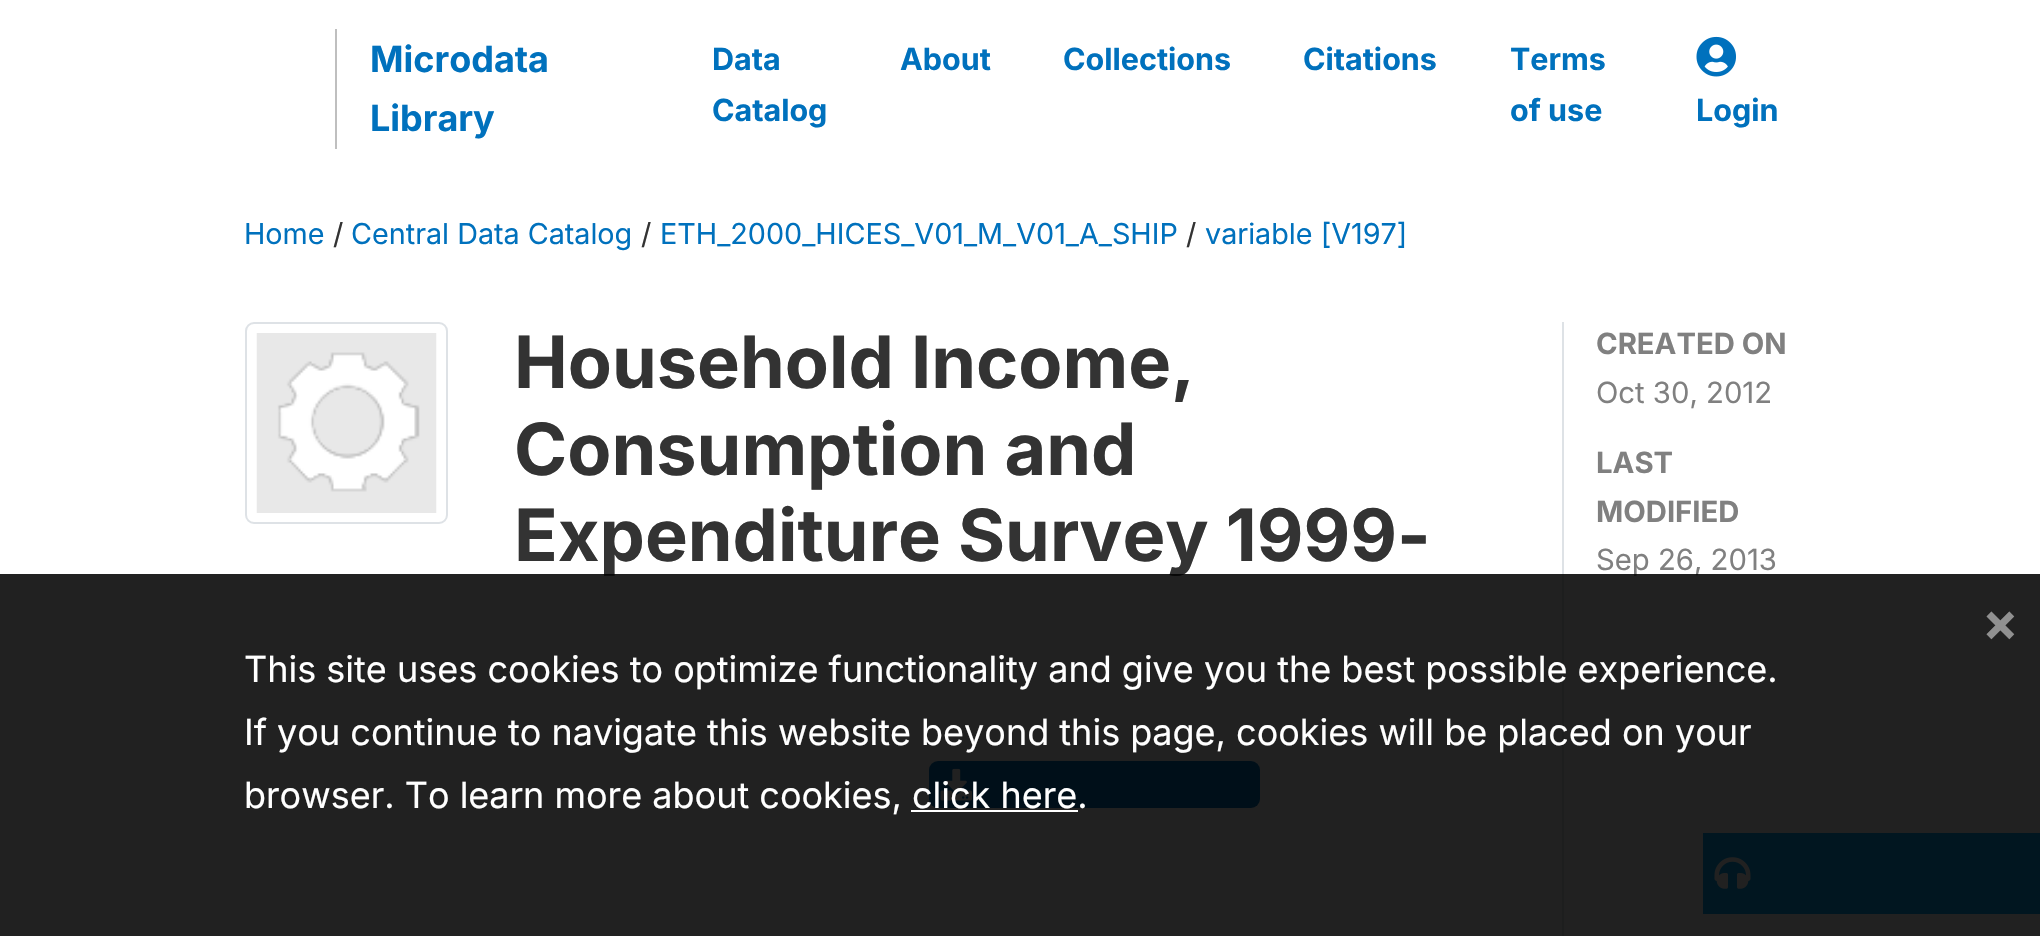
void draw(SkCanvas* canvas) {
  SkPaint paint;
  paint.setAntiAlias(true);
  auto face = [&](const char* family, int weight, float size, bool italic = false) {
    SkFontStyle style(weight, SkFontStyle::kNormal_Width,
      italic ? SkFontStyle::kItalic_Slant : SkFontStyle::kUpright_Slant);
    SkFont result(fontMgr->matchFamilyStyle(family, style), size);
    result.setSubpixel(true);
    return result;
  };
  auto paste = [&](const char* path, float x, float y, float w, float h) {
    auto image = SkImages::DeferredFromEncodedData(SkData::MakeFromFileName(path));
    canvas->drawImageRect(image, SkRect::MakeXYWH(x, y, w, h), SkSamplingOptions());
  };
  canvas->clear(0xffffffff);
  paint.setColor(0xffbfbfbf);
  canvas->drawRect(SkRect::MakeXYWH(335, 29, 2, 120), paint);
  paste("img/1.png", 1696, 36, 40, 41);
  paint.setStroke(true);
  paint.setStrokeWidth(2);
  paint.setColor(0xffdee2e6);
  canvas->drawRoundRect(SkRect::MakeXYWH(246, 323, 201, 200), 8, 8, paint);
  paste("img/2.png", 256, 333, 181, 180);
  paint.setStroke(false);
  paint.setColor(0xff0071bd);
  canvas->drawRoundRect(SkRect::MakeXYWH(929, 761, 331, 47), 9, 9, paint);
  paste("img/3.png", 940, 768, 32, 33);
  paint.setColor(0xffdee2e6);
  canvas->drawRect(SkRect::MakeXYWH(1562, 322, 2, 614), paint);
  paint.setColor(0xff03a9f4);
  canvas->drawRect(SkRect::MakeXYWH(1703, 833, 337, 81), paint);
  paste("img/4.png", 1714, 857, 37, 32);
  auto f0 = face("Inter", 700, 36);
  paint.setColor(0xff0071bd);
  canvas->drawString("Microdata", 370, 72, f0, paint);
  canvas->drawString("Library", 370, 131, f0, paint);
  auto f1 = face("Inter", 700, 30.5f);
  {
    const struct { const char* s; float x, y; } items[] = {
      {"Data", 712, 70},
      {"Catalog", 712, 121},
      {"About", 900, 70},
      {"Collections", 1063, 70},
      {"Citations", 1303, 70},
      {"Terms", 1510, 70},
      {"of use", 1510, 121},
      {"Login", 1696, 121},
    };
    for (auto [s, x, y] : items) {
      canvas->drawString(s, x, y, f1, paint);
    }
  }
  auto f2 = face("Inter", 400, 28.75f);
  canvas->drawString("Home", 244, 244, f2, paint);
  paint.setColor(0xff333333);
  canvas->drawString("/", 333, 244, f2, paint);
  paint.setColor(0xff0071bd);
  canvas->drawString("Central Data Catalog", 351, 244, f2, paint);
  paint.setColor(0xff333333);
  canvas->drawString("/", 641, 244, f2, paint);
  paint.setColor(0xff0071bd);
  canvas->drawString("ETH_2000_HICES_V01_M_V01_A_SHIP", 660, 244, f2, paint);
  paint.setColor(0xff333333);
  canvas->drawString("/", 1186, 244, f2, paint);
  paint.setColor(0xff0071bd);
  canvas->drawString("variable [V197]", 1205, 244, f2, paint);
  auto f3 = face("Inter", 700, 72);
  paint.setColor(0xff333333);
  {
    const struct { const char* s; float x, y; } items[] = {
      {"Household Income,", 514, 388},
      {"Consumption and", 514, 475},
      {"Expenditure Survey 1999-", 514, 561},
    };
    for (auto [s, x, y] : items) {
      canvas->drawString(s, x, y, f3, paint);
    }
  }
  auto f4 = face("Inter", 700, 29.25f);
  paint.setColor(0xff808080);
  canvas->drawString("CREATED ON", 1596, 354, f4, paint);
  auto f5 = face("Inter", 400, 29.25f);
  canvas->drawString("Oct 30, 2012", 1596, 403, f5, paint);
  canvas->drawString("LAST", 1596, 473, f4, paint);
  canvas->drawString("MODIFIED", 1596, 522, f4, paint);
  canvas->drawString("Sep 26, 2013", 1596, 570, f5, paint);
  paint.setColor(0xde000000);
  canvas->drawRect(SkRect::MakeXYWH(0, 574, 2040, 362), paint);
  auto f6 = face("Inter", 700, 54);
  paint.setColor(0xff909090);
  canvas->drawString("×", 1982, 641, f6, paint);
  auto f7 = face("Inter", 400, 36);
  paint.setColor(0xffffffff);
  {
    const struct { const char* s; float x, y; } items[] = {
      {"This site uses cookies to optimize functionality and give you the best possible experience.", 244, 682},
      {"If you continue to navigate this website beyond this page, cookies will be placed on your", 244, 745},
      {"browser. To learn more about cookies, click here.", 244, 808},
    };
    for (auto [s, x, y] : items) {
      canvas->drawString(s, x, y, f7, paint);
    }
  }
  canvas->drawRect(SkRect::MakeXYWH(911, 810, 167, 2), paint);
}
